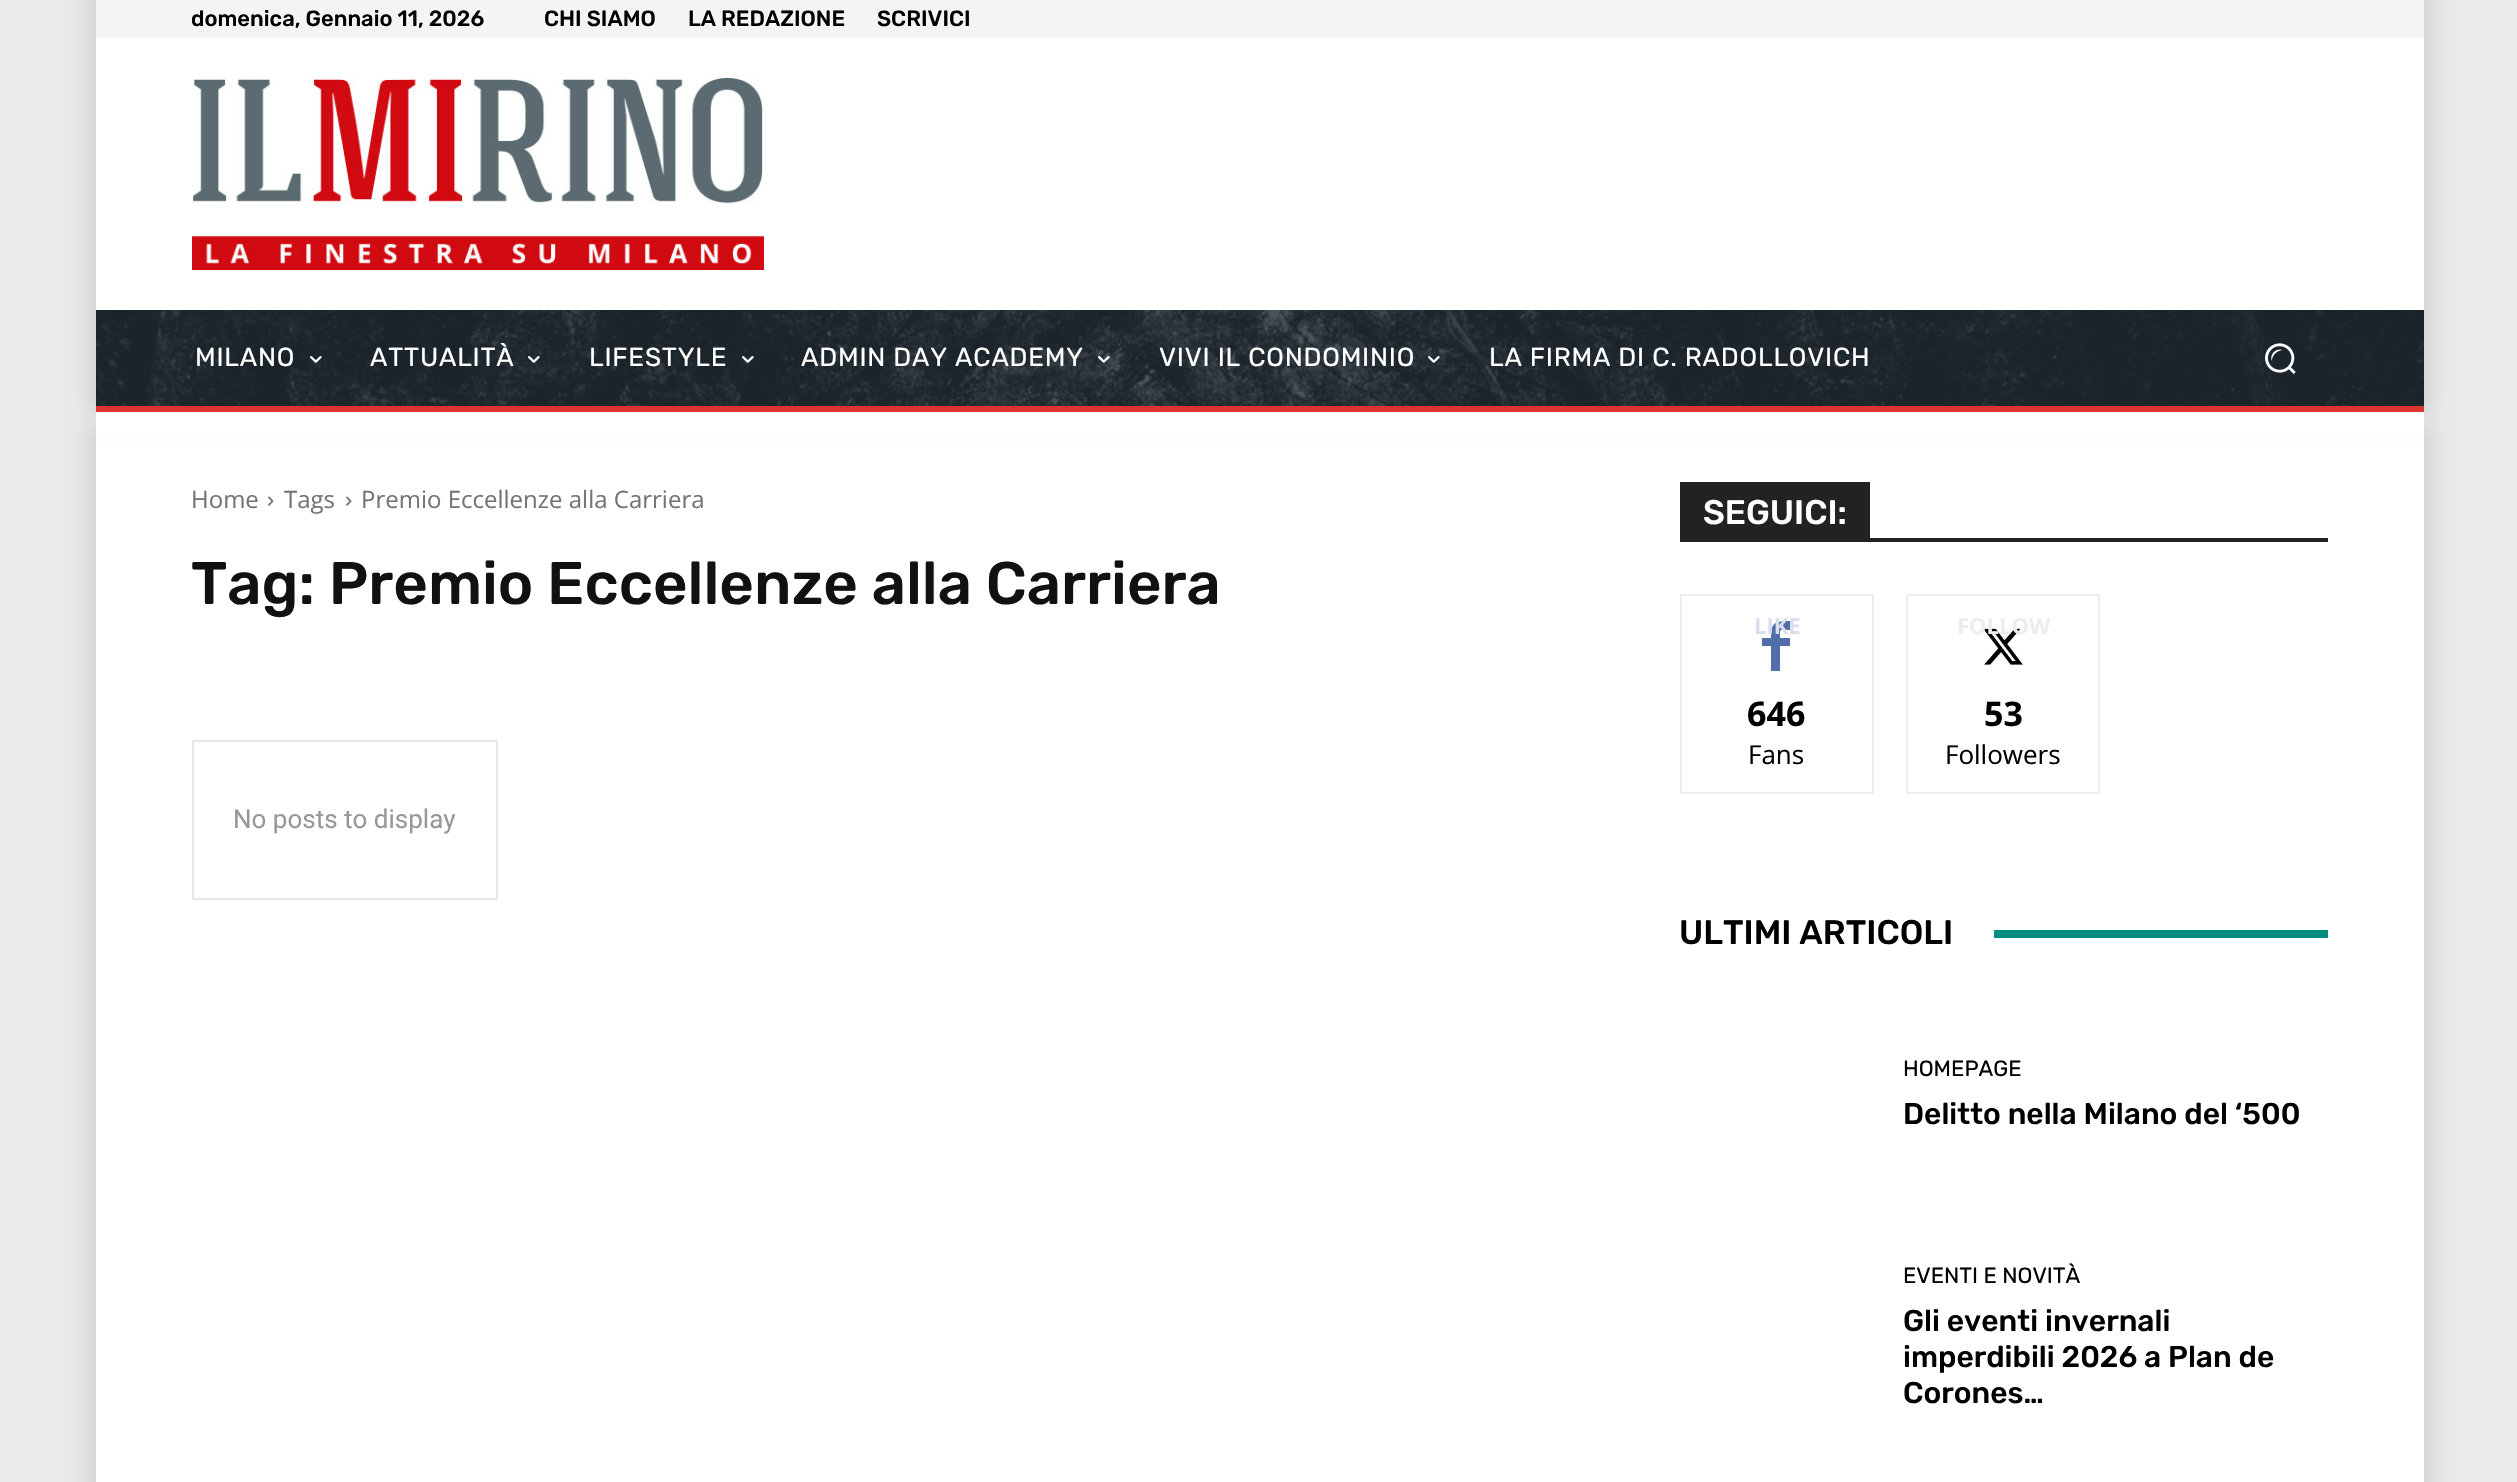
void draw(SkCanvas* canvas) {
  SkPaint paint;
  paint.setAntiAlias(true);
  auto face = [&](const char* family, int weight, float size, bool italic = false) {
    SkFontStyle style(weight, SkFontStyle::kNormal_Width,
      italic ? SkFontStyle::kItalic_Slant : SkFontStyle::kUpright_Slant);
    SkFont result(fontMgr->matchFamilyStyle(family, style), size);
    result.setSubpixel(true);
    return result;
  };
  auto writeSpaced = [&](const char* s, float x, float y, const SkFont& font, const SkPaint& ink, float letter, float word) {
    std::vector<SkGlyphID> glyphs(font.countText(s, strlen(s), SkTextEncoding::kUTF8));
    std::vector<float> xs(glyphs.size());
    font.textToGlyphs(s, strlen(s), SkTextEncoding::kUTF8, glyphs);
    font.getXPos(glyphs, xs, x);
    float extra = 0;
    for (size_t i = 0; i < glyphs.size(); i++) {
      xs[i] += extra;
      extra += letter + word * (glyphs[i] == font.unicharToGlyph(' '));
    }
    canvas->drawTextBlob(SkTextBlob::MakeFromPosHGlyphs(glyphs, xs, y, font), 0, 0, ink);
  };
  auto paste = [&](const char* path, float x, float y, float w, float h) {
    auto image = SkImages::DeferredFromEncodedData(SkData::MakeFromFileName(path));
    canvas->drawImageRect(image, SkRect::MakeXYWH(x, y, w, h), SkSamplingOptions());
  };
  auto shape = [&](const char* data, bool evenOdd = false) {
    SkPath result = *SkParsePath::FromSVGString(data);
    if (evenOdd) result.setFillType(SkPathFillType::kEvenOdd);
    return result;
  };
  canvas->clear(0xffeaeaea);
  paint.setColor(0x1f000000);
  paint.setMaskFilter(SkMaskFilter::MakeBlur(kNormal_SkBlurStyle, 10));
  canvas->drawRect(SkRect::MakeXYWH(90, 426, 2340, 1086), paint);
  paint.setMaskFilter(nullptr);
  paint.setColor(0xffffffff);
  canvas->drawRect(SkRect::MakeXYWH(96, 432, 2328, 1050), paint);
  paint.setColor(0x1f000000);
  paint.setMaskFilter(SkMaskFilter::MakeBlur(kNormal_SkBlurStyle, 10));
  canvas->drawRect(SkRect::MakeXYWH(90, -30, 2340, 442), paint);
  paint.setMaskFilter(nullptr);
  paint.setColor(0xfff4f4f4);
  canvas->drawRect(SkRect::MakeXYWH(96, 0, 2328, 38), paint);
  paint.setColor(0xffffffff);
  canvas->drawRect(SkRect::MakeXYWH(96, 38, 2328, 394), paint);
  paste("img/1.png", 192, 78, 572, 192);
  paint.setColor(0xff232d35);
  canvas->drawRect(SkRect::MakeXYWH(96, 310, 2328, 96), paint);
  paste("img/2.png", 96, 310, 2328, 96);
  paste("img/3.png", 310, 356, 12, 7);
  paste("img/4.png", 528, 356, 12, 7);
  paste("img/5.png", 742, 356, 12, 7);
  paste("img/6.png", 1098, 356, 12, 7);
  paste("img/7.png", 1428, 356, 12, 7);
  paste("img/8.png", 2265, 343, 31, 31);
  paint.setColor(0xffdd3333);
  canvas->drawRect(SkRect::MakeXYWH(96, 406, 2328, 6), paint);
  paste("img/9.png", 268, 496, 6, 10);
  paste("img/9.png", 346, 496, 6, 10);
  paint.setStroke(true);
  paint.setStrokeWidth(2);
  paint.setColor(0xffe8e8e8);
  canvas->drawRect(SkRect::MakeXYWH(193, 741, 304, 158), paint);
  paint.setStroke(false);
  paint.setColor(0xff222222);
  canvas->drawRect(SkRect::MakeXYWH(1680, 538, 648, 4), paint);
  canvas->drawRect(SkRect::MakeXYWH(1680, 482, 190, 56), paint);
  paint.setStroke(true);
  paint.setColor(0xffededed);
  canvas->drawRect(SkRect::MakeXYWH(1681, 595, 192, 198), paint);
  paint.setStroke(false);
  paint.setColor(0xff516eab);
  canvas->drawPath(shape("M1790 630C1779 630 1780 628 1780 638H1790V646H1780V671H1771V646H1762V638H1771C1771 622 1775 621 1790 621Z"), paint);
  paint.setStroke(true);
  paint.setColor(0xffededed);
  canvas->drawRect(SkRect::MakeXYWH(1907, 595, 192, 198), paint);
  paste("img/10.png", 1983, 628, 40, 37);
  paint.setStroke(false);
  paint.setColor(0xff008d7f);
  canvas->drawRect(SkRect::MakeXYWH(1994, 930, 334, 8), paint);
  auto f0 = face("Rubik", 500, 22);
  paint.setColor(0xff000000);
  {
    const struct { const char* s; float x, y; } items[] = {
      {"domenica, Gennaio 11, 2026", 191, 26},
      {"CHI SIAMO", 544, 26},
      {"LA REDAZIONE", 688, 26},
      {"SCRIVICI", 877, 26},
    };
    for (auto [s, x, y] : items) {
      canvas->drawString(s, x, y, f0, paint);
    }
  }
  auto f1 = face("Rubik", 400, 26);
  paint.setColor(0xffffffff);
  {
    const struct { const char* s; float x, y; } items[] = {
      {"MILANO", 195, 366},
      {"ATTUALITÀ", 370, 366},
      {"LIFESTYLE", 589, 366},
      {"ADMIN DAY ACADEMY", 801, 366},
      {"VIVI IL CONDOMINIO", 1159, 366},
      {"LA FIRMA DI C. RADOLLOVICH", 1489, 366},
    };
    for (auto [s, x, y] : items) {
      writeSpaced(s, x, y, f1, paint, 0.8f, 0);
    }
  }
  auto f2 = face("Open Sans", 400, 24);
  paint.setColor(0xff747474);
  {
    const struct { const char* s; float x, y; } items[] = {
      {"Home", 191, 508},
      {"Tags", 284, 508},
      {"Premio Eccellenze alla Carriera", 361, 508},
    };
    for (auto [s, x, y] : items) {
      canvas->drawString(s, x, y, f2, paint);
    }
  }
  auto f3 = face("Rubik", 500, 60);
  paint.setColor(0xff111111);
  canvas->drawString("Tag: Premio Eccellenze alla Carriera", 191, 604, f3, paint);
  auto f4 = face("Roboto", 400, 26);
  paint.setColor(0xff979797);
  canvas->drawString("No posts to display", 233, 828, f4, paint);
  auto f5 = face("Rubik", 500, 34);
  paint.setColor(0xffffffff);
  canvas->drawString("SEGUICI:", 1703, 524, f5, paint);
  auto f6 = face("Open Sans", 700, 22);
  paint.setColor(0xffd8deec);
  canvas->drawString("LIKE", 1754, 634, f6, paint);
  auto f7 = face("Open Sans", 700, 34);
  paint.setColor(0xff000000);
  canvas->drawString("646", 1747, 726, f7, paint);
  auto f8 = face("Open Sans", 400, 26);
  canvas->drawString("Fans", 1748, 764, f8, paint);
  paint.setColor(0xffededed);
  canvas->drawString("FOLLOW", 1957, 634, f6, paint);
  paint.setColor(0xff000000);
  canvas->drawString("53", 1984, 726, f7, paint);
  canvas->drawString("Followers", 1945, 764, f8, paint);
  canvas->drawString("ULTIMI ARTICOLI", 1679, 944, f5, paint);
  auto f9 = face("Rubik", 400, 22);
  canvas->drawString("HOMEPAGE", 1903, 1076, f9, paint);
  auto f10 = face("Rubik", 500, 30);
  canvas->drawString("Delitto nella Milano del ‘500", 1903, 1124, f10, paint);
  canvas->drawString("EVENTI E NOVITÀ", 1903, 1283, f9, paint);
  {
    const struct { const char* s; float x, y; } items[] = {
      {"Gli eventi invernali", 1903, 1331},
      {"imperdibili 2026 a Plan de", 1903, 1367},
      {"Corones…", 1903, 1403},
    };
    for (auto [s, x, y] : items) {
      canvas->drawString(s, x, y, f10, paint);
    }
  }
}
